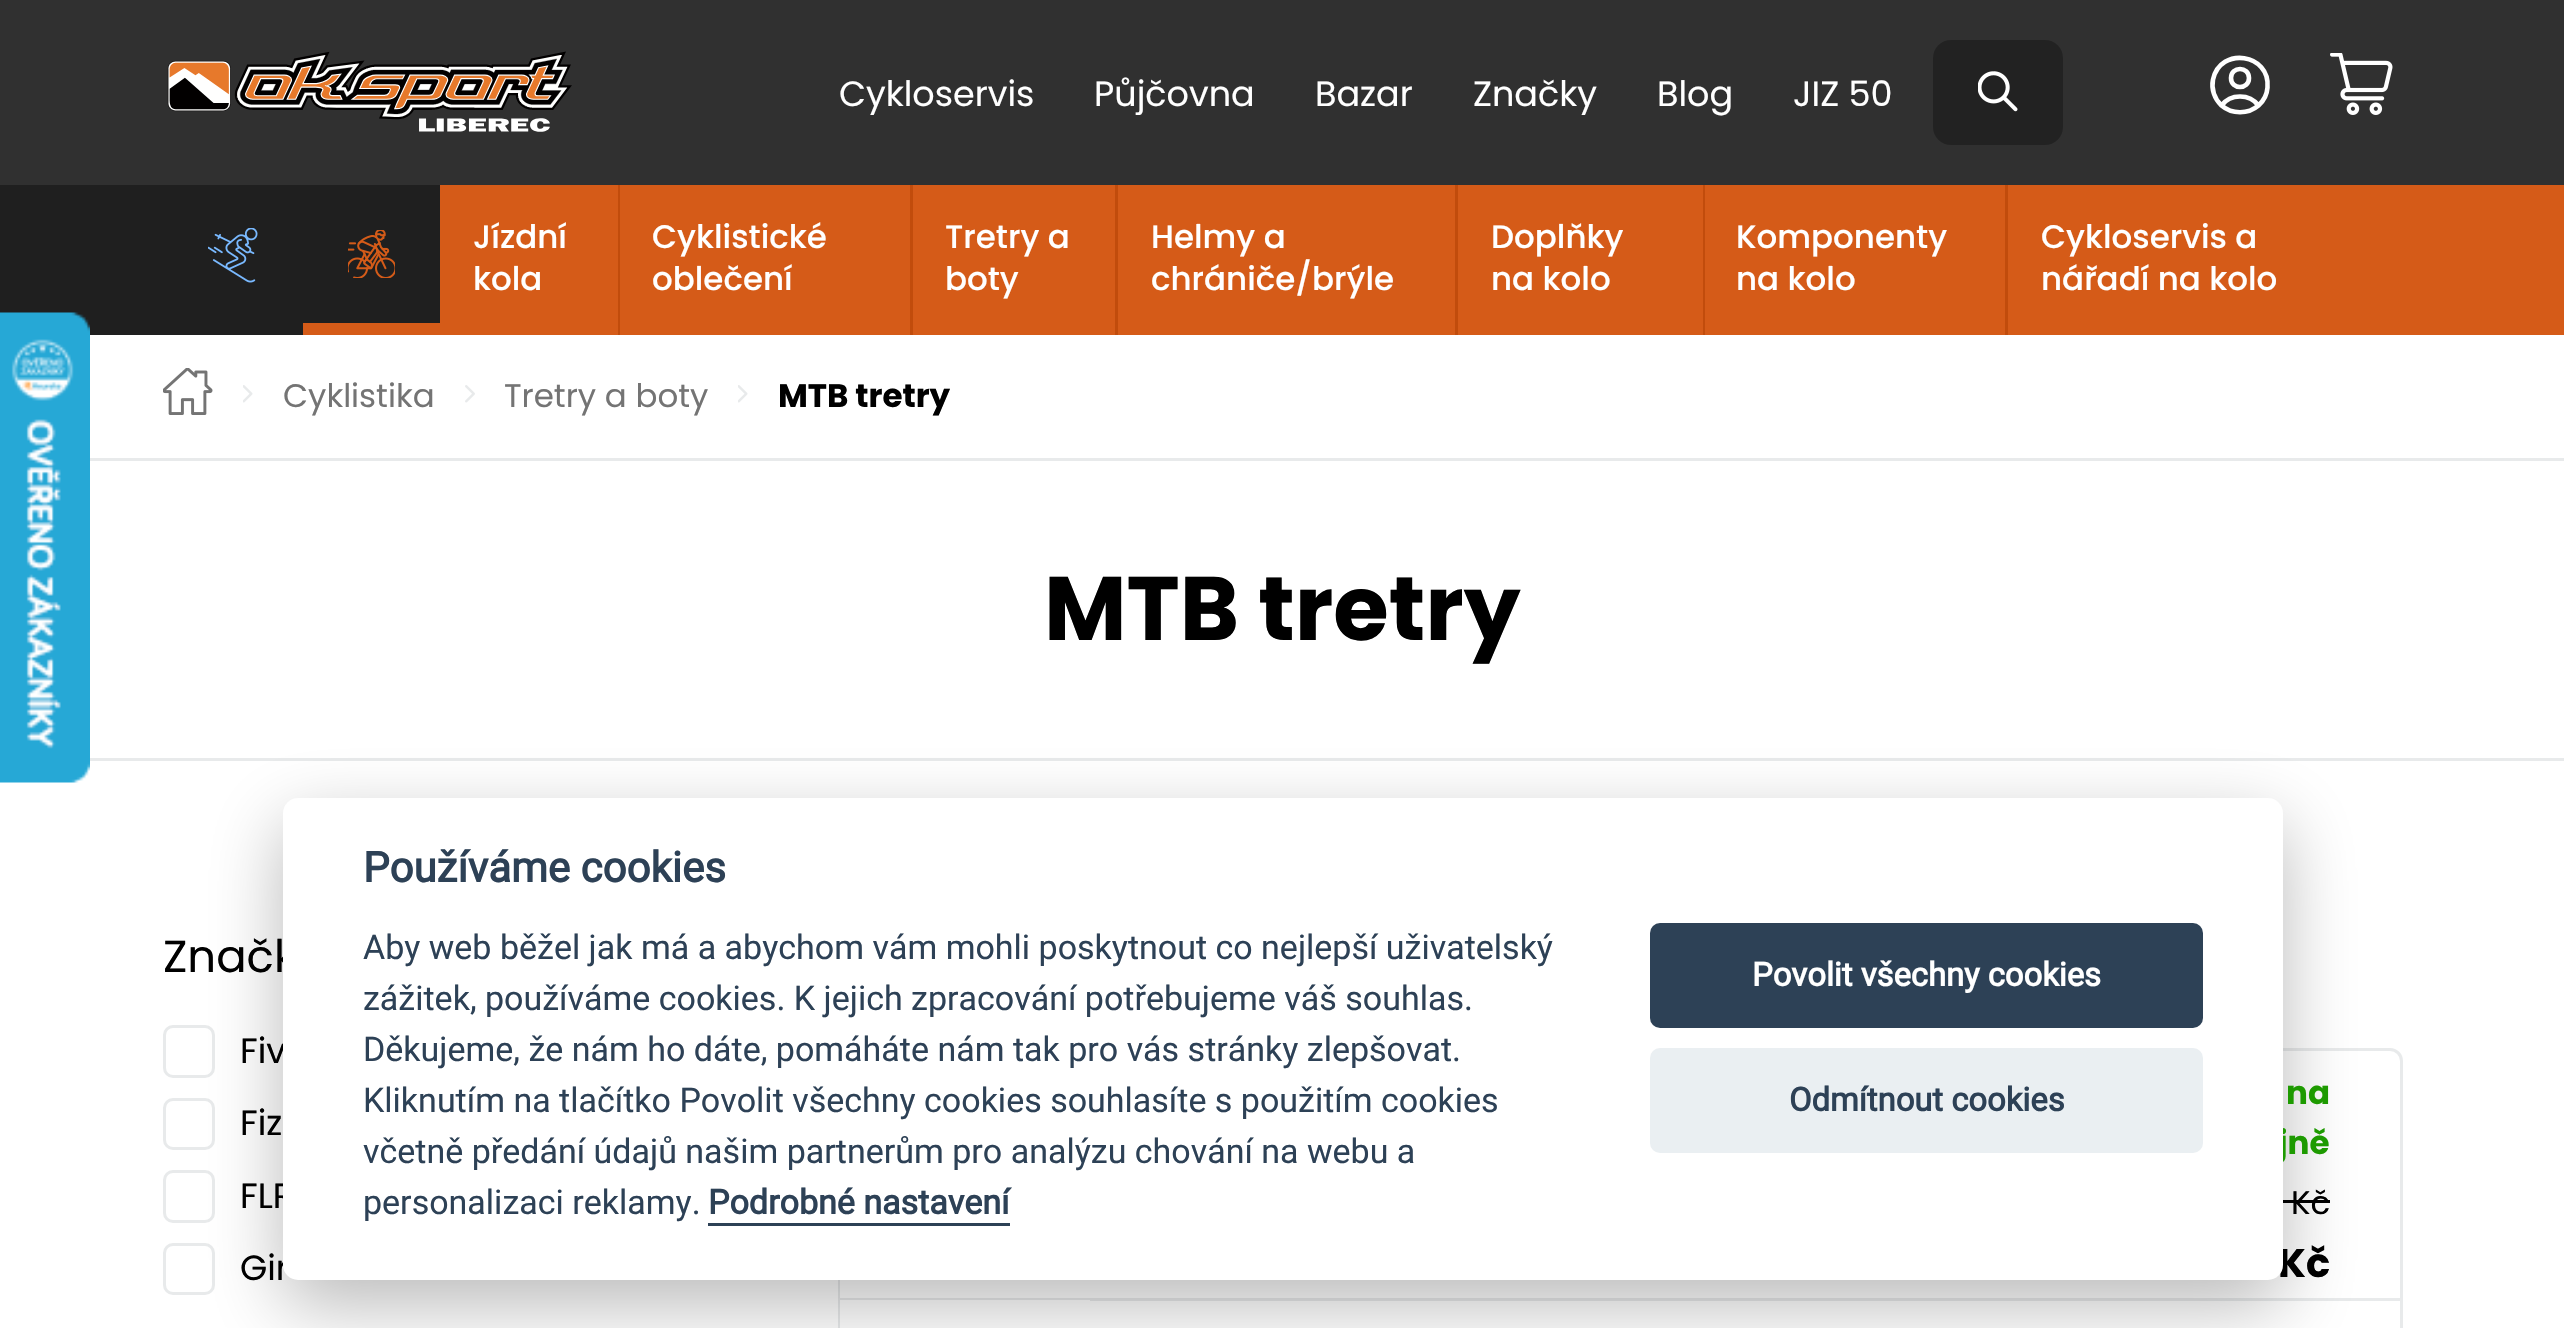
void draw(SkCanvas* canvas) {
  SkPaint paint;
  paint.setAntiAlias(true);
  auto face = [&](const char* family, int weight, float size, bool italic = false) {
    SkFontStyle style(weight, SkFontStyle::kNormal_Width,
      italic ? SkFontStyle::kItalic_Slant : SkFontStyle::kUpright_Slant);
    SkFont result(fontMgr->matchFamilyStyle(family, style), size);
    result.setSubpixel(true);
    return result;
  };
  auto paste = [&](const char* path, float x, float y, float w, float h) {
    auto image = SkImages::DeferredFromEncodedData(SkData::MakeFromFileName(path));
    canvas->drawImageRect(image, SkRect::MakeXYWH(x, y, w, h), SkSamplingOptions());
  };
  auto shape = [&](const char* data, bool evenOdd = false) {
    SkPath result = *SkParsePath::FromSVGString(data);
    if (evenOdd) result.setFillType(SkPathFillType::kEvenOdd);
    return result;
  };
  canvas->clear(0xffffffff);
  paint.setColor(0xff1f1f1f);
  canvas->drawRect(SkRect::MakeXYWH(0, 185, 440, 150), paint);
  paste("img/1.png", 0, 312, 90, 471);
  paint.setColor(0xff303030);
  canvas->drawRect(SkRect::MakeXYWH(0, 0, 2564, 185), paint);
  paste("img/2.png", 167, 51, 405, 81);
  paint.setColor(0xff222222);
  canvas->drawRoundRect(SkRect::MakeXYWH(1933, 40, 130, 105), 18, 18, paint);
  paste("img/3.png", 1978, 71, 40, 41);
  paint.setStroke(true);
  paint.setStrokeWidth(4.6f);
  paint.setStrokeCap(SkPaint::kRound_Cap);
  paint.setStrokeJoin(SkPaint::kRound_Join);
  paint.setColor(0xffffffff);
  canvas->drawPath(shape("M2258.5 105.5C2249.5 93.5 2230.5 93.5 2221.5 105.5M2258.5 105.5C2263.5 101 2267 94.5 2267.5 87.5C2270.5 53.5 2220.5 46 2213 79.5C2211 89 2214.5 99 2221.5 105.5M2258.5 105.5C2248 114.5 2232 114.5 2221.5 105.5M2249 78C2249 90 2231 90 2231 78C2231 66 2249 66 2249 78Z"), paint);
  paste("img/4.png", 2330, 53, 63, 62);
  paint.setStroke(false);
  paint.setColor(0xffd55b18);
  canvas->drawRect(SkRect::MakeXYWH(440, 185, 2124, 150), paint);
  paste("img/5.png", 208, 228, 50, 55);
  paste("img/6.png", 348, 230, 47, 48);
  {
    const struct { float x, y, w, h; SkColor color; } items[] = {
      {303, 323, 137, 12, 0xffd55b18},
      {618, 185, 2, 150, 0xffc14c0c},
      {910, 185, 3, 150, 0xffc14c0c},
      {1115, 185, 3, 150, 0xffc14c0c},
      {1455, 185, 3, 150, 0xffc14c0c},
      {1703, 185, 2, 150, 0xffc14c0c},
      {2005, 185, 3, 150, 0xffc14c0c},
      {90, 458, 2474, 3, 0xffe8eaeb},
    };
    for (auto [x, y, w, h, color] : items) {
      paint.setColor(color);
      canvas->drawRect(SkRect::MakeXYWH(x, y, w, h), paint);
    }
  }
  paste("img/7.png", 163, 368, 50, 47);
  paste("img/8.png", 243, 385, 10, 18);
  paste("img/9.png", 465, 385, 10, 18);
  paste("img/8.png", 738, 385, 10, 18);
  canvas->drawRect(SkRect::MakeXYWH(90, 758, 2474, 3), paint);
  paint.setStroke(true);
  paint.setStrokeWidth(3);
  paint.setStrokeCap(SkPaint::kButt_Cap);
  paint.setStrokeJoin(SkPaint::kMiter_Join);
  canvas->drawRoundRect(SkRect::MakeXYWH(164.5f, 1026.5f, 49, 50), 8.5f, 8.5f, paint);
  canvas->drawRoundRect(SkRect::MakeXYWH(164.5f, 1099.5f, 49, 49), 8.5f, 8.5f, paint);
  canvas->drawRoundRect(SkRect::MakeXYWH(164.5f, 1171.5f, 49, 50), 8.5f, 8.5f, paint);
  canvas->drawRoundRect(SkRect::MakeXYWH(164.5f, 1244.5f, 49, 49), 8.5f, 8.5f, paint);
  canvas->drawRoundRect(SkRect::MakeXYWH(839.5f, 1049.5f, 1562, 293), 11.5f, 11.5f, paint);
  paint.setStroke(false);
  {
    const struct { float x, y, w, h; SkColor color; } items[] = {
      {840, 1298, 1560, 3, 0xffe8eaeb},
      {2283, 1200, 47, 3, 0xff000000},
      {840, 1280, 1, 18, 0xffffffff},
      {840, 1300, 250, 28, 0xffffffff},
    };
    for (auto [x, y, w, h, color] : items) {
      paint.setColor(color);
      canvas->drawRect(SkRect::MakeXYWH(x, y, w, h), paint);
    }
  }
  paint.setColor(0x47020203);
  paint.setMaskFilter(SkMaskFilter::MakeBlur(kNormal_SkBlurStyle, 37.5f));
  canvas->drawRoundRect(SkRect::MakeXYWH(283, 823, 2000, 482), 15, 15, paint);
  paint.setMaskFilter(nullptr);
  auto f0 = face("Poppins", 400, 35);
  paint.setColor(0xffffffff);
  {
    const struct { const char* s; float x, y; } items[] = {
      {"Cykloservis", 839, 106},
      {"Půjčovna", 1094, 106},
      {"Bazar", 1315, 106},
      {"Značky", 1473, 106},
      {"Blog", 1657, 106},
      {"JIZ 50", 1793, 106},
    };
    for (auto [s, x, y] : items) {
      canvas->drawString(s, x, y, f0, paint);
    }
  }
  auto f1 = face("Poppins", 500, 32.5f);
  {
    const struct { const char* s; float x, y; } items[] = {
      {"Jízdní", 473, 248},
      {"kola", 473, 290},
      {"Cyklistické", 652, 248},
      {"oblečení", 652, 290},
      {"Tretry a", 945, 248},
      {"boty", 945, 290},
      {"Helmy a", 1151, 248},
      {"chrániče/brýle", 1151, 290},
      {"Doplňky", 1491, 248},
      {"na kolo", 1491, 290},
      {"Komponenty", 1736, 248},
      {"na kolo", 1736, 290},
      {"Cykloservis a", 2041, 248},
      {"nářadí na kolo", 2041, 290},
    };
    for (auto [s, x, y] : items) {
      canvas->drawString(s, x, y, f1, paint);
    }
  }
  auto f2 = face("Poppins", 400, 32.5f);
  paint.setColor(0xff747474);
  canvas->drawString("Cyklistika", 283, 407, f2, paint);
  canvas->drawString("Tretry a boty", 504, 407, f2, paint);
  auto f3 = face("Poppins", 700, 32.5f);
  paint.setColor(0xff000000);
  canvas->drawString("MTB tretry", 778, 407, f3, paint);
  auto f4 = face("Poppins", 700, 90);
  canvas->drawString("MTB tretry", 1044, 640, f4, paint);
  auto f5 = face("Poppins", 400, 45);
  canvas->drawString("Značk", 163, 972, f5, paint);
  {
    const struct { const char* s; float x, y; } items[] = {
      {"Fiv", 240, 1063},
      {"Fiz", 240, 1135},
      {"FLR", 240, 1208},
      {"Gir", 240, 1280},
    };
    for (auto [s, x, y] : items) {
      canvas->drawString(s, x, y, f0, paint);
    }
  }
  paint.setColor(0xff1d9a00);
  canvas->drawString("na", 2286, 1104, f3, paint);
  canvas->drawString("jně", 2278, 1154, f3, paint);
  paint.setColor(0xff000000);
  canvas->drawString("Kč", 2291, 1214, f2, paint);
  auto f6 = face("Poppins", 700, 40);
  canvas->drawString("Kč", 2278, 1277, f6, paint);
  paint.setColor(0xffffffff);
  canvas->drawRoundRect(SkRect::MakeXYWH(283, 798, 2000, 482), 15, 15, paint);
  auto f7 = face("Roboto", 700, 42);
  paint.setColor(0xff2d4156);
  canvas->drawString("Používáme cookies", 363, 882, f7, paint);
  auto f8 = face("Roboto", 400, 34);
  {
    const struct { const char* s; float x, y; } items[] = {
      {"Aby web běžel jak má a abychom vám mohli poskytnout co nejlepší uživatelský", 363, 959},
      {"zážitek, používáme cookies. K jejich zpracování potřebujeme váš souhlas.", 363, 1010},
      {"Děkujeme, že nám ho dáte, pomáháte nám tak pro vás stránky zlepšovat.", 363, 1061},
      {"Kliknutím na tlačítko Povolit všechny cookies souhlasíte s použitím cookies", 363, 1112},
      {"včetně předání údajů našim partnerům pro analýzu chování na webu a", 363, 1163},
      {"personalizaci reklamy.", 363, 1214},
    };
    for (auto [s, x, y] : items) {
      canvas->drawString(s, x, y, f8, paint);
    }
  }
  auto f9 = face("Roboto", 700, 34);
  canvas->drawString("Podrobné nastavení", 708, 1214, f9, paint);
  canvas->drawRect(SkRect::MakeXYWH(708, 1223, 302, 3), paint);
  canvas->drawRoundRect(SkRect::MakeXYWH(1650, 923, 553, 105), 10, 10, paint);
  auto f10 = face("Roboto", 700, 32.75f);
  paint.setColor(0xffffffff);
  canvas->drawString("Povolit všechny cookies", 1752, 986, f10, paint);
  paint.setColor(0xffeaeff2);
  canvas->drawRoundRect(SkRect::MakeXYWH(1650, 1048, 553, 105), 10, 10, paint);
  paint.setColor(0xff2d4156);
  canvas->drawString("Odmítnout cookies", 1789, 1111, f10, paint);
}
